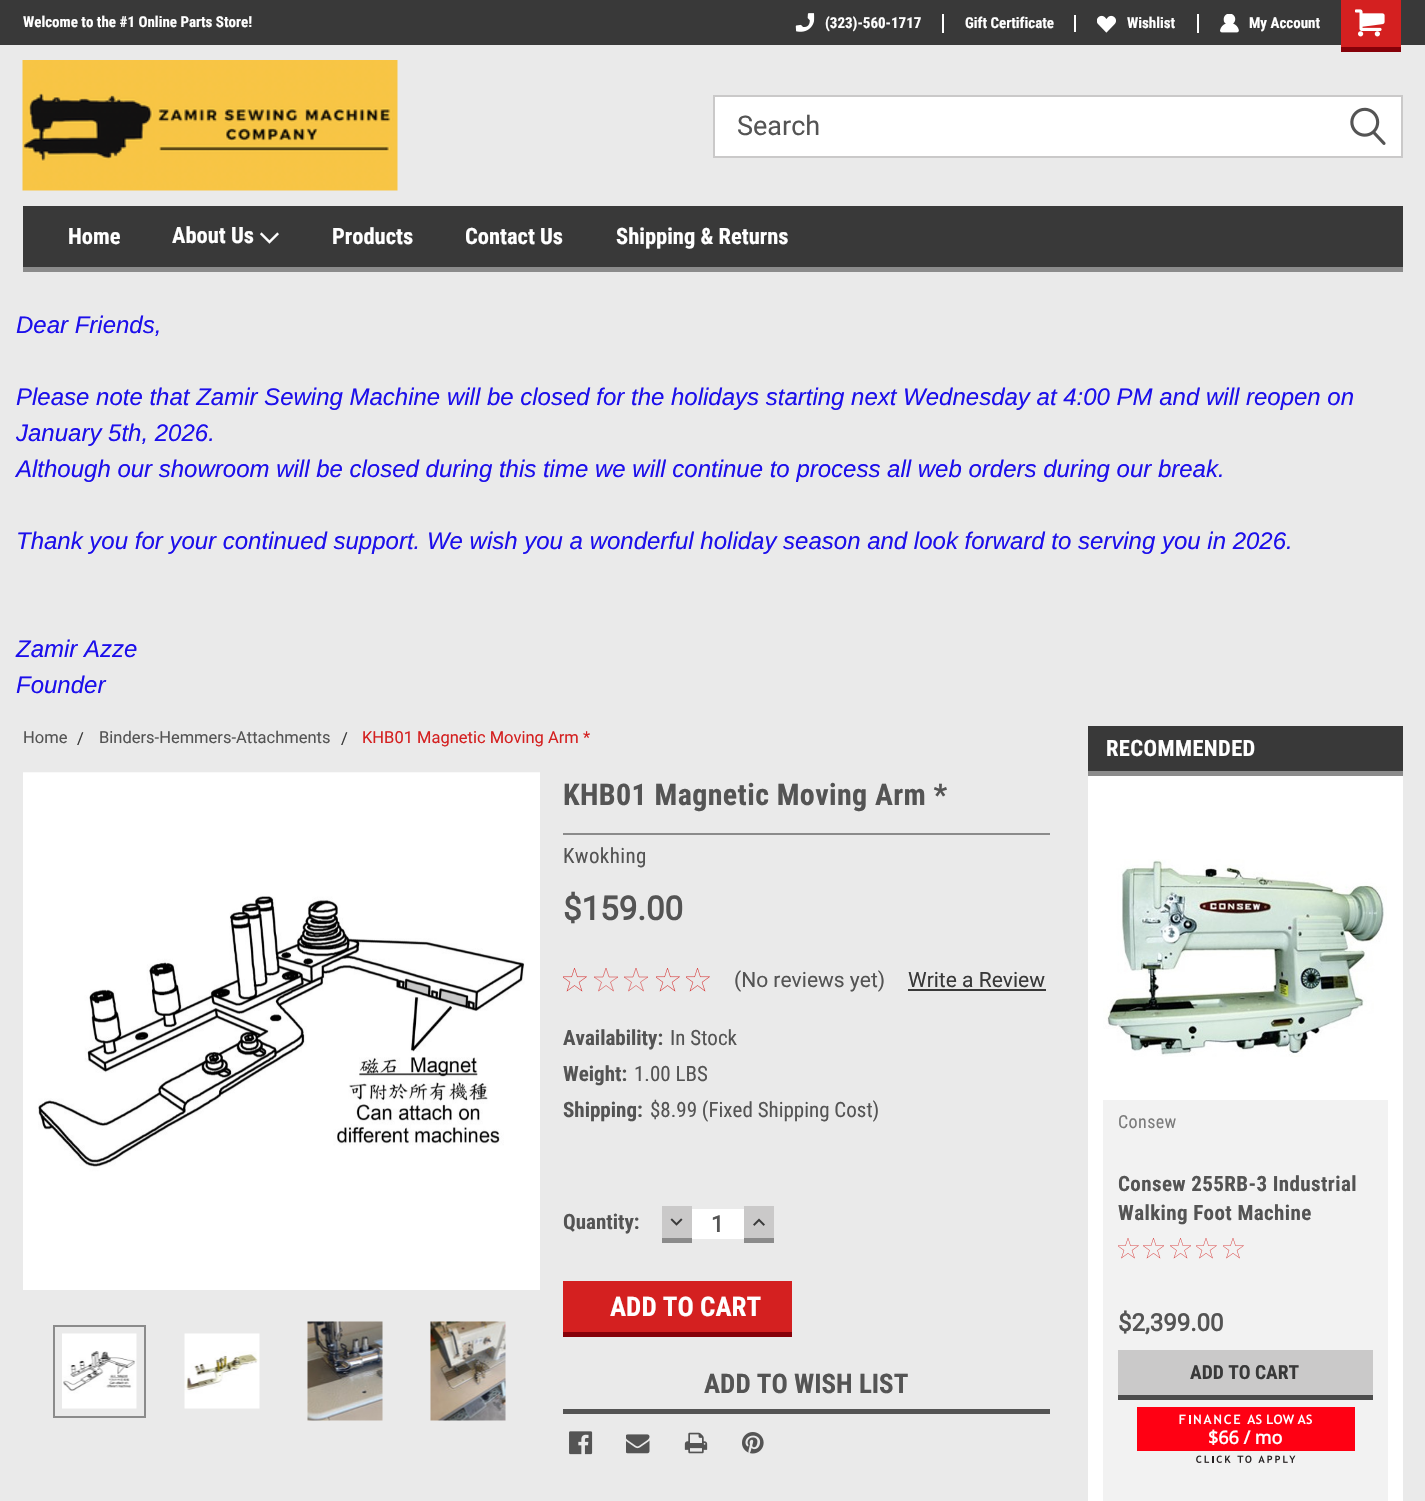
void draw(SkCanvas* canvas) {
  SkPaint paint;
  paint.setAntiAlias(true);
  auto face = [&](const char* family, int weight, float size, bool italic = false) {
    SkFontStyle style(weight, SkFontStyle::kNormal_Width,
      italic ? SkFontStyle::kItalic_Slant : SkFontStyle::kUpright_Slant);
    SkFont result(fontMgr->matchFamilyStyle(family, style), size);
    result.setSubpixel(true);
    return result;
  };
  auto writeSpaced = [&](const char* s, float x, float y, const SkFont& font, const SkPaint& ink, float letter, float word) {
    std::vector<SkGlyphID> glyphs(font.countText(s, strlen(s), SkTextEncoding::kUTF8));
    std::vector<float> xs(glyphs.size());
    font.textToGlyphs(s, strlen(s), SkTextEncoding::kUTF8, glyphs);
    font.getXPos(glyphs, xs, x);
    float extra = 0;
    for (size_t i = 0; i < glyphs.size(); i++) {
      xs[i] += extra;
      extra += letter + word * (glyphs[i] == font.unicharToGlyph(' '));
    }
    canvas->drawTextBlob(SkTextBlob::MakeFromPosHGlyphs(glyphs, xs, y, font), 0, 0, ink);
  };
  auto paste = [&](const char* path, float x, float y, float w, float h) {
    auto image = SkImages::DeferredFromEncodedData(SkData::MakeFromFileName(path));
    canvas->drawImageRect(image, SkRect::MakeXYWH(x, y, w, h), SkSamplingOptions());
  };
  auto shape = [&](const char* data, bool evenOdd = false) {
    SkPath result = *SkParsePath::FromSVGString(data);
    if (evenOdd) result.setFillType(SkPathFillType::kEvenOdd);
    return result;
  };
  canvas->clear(0xffeaeaea);
  paint.setColor(0xff393939);
  canvas->drawRect(SkRect::MakeXYWH(0, 0, 1425, 45), paint);
  paint.setColor(0xffffffff);
  canvas->drawRect(SkRect::MakeXYWH(942, 14, 2, 19), paint);
  paste("img/1.png", 795, 13, 20, 19);
  canvas->drawRect(SkRect::MakeXYWH(1074, 15, 2, 17), paint);
  canvas->drawRect(SkRect::MakeXYWH(1197, 14, 2, 19), paint);
  paste("img/2.png", 1097, 15, 19, 18);
  paste("img/3.png", 1220, 14, 19, 19);
  paint.setColor(0xffd42020);
  canvas->drawRect(SkRect::MakeXYWH(1341, 0, 60, 47), paint);
  paint.setColor(0xff860109);
  canvas->drawRect(SkRect::MakeXYWH(1341, 47, 60, 5), paint);
  paste("img/4.png", 1355, 9, 30, 28);
  paste("img/5.png", 22, 60, 376, 131);
  paint.setColor(0xffffffff);
  canvas->drawRect(SkRect::MakeXYWH(714, 96, 688, 61), paint);
  paint.setStroke(true);
  paint.setStrokeWidth(2);
  paint.setColor(0xffcac9c9);
  canvas->drawRect(SkRect::MakeXYWH(714, 96, 688, 61), paint);
  paste("img/6.png", 1350, 107, 36, 38);
  paint.setStroke(false);
  paint.setColor(0xff393939);
  canvas->drawRect(SkRect::MakeXYWH(23, 206, 1380, 61), paint);
  paint.setColor(0xff8b8b8b);
  canvas->drawRect(SkRect::MakeXYWH(23, 267, 1380, 5), paint);
  paste("img/7.png", 260, 232, 19, 12);
  paste("img/8.png", 23, 772, 517, 518);
  paint.setStroke(true);
  canvas->drawRect(SkRect::MakeXYWH(54, 1326, 91, 91), paint);
  paste("img/9.png", 62, 1333, 75, 76);
  paste("img/10.png", 184, 1333, 76, 76);
  paste("img/11.png", 307, 1321, 76, 100);
  paste("img/12.png", 430, 1321, 76, 100);
  paint.setStroke(false);
  canvas->drawRect(SkRect::MakeXYWH(563, 833, 487, 2), paint);
  paste("img/13.png", 563, 968, 24, 24);
  canvas->save();
  canvas->clipRect(SkRect::MakeXYWH(594, 968, 24, 24));
  paint.setStroke(true);
  paint.setStrokeWidth(0.5f);
  paint.setColor(0xffd42020);
  canvas->drawPath(shape("M606 968L609 977H618L610.5 982L613.5 991L606 985.5L598.5 991L601.5 982L594 977H603Z"), paint);
  canvas->restore();
  canvas->save();
  canvas->clipRect(SkRect::MakeXYWH(624, 968, 24, 24));
  canvas->drawPath(shape("M636 968L639 977H648L640.5 982L643.5 991L636 985.5L628.5 991L631.5 982L624 977H633Z"), paint);
  canvas->restore();
  paste("img/13.png", 656, 968, 24, 24);
  paste("img/13.png", 686, 968, 24, 24);
  paint.setStroke(false);
  {
    const struct { float x, y, w, h; SkColor color; } items[] = {
      {908, 989, 138, 2, 0xff393939},
      {662, 1206, 30, 32, 0xffcac9c9},
      {662, 1238, 30, 5, 0xff8b8b8b},
    };
    for (auto [x, y, w, h, color] : items) {
      paint.setColor(color);
      canvas->drawRect(SkRect::MakeXYWH(x, y, w, h), paint);
    }
  }
  paste("img/14.png", 670, 1218, 13, 8);
  {
    const struct { float x, y, w, h; SkColor color; } items[] = {
      {692, 1209, 52, 30, 0xffffffff},
      {744, 1206, 30, 32, 0xffcac9c9},
      {744, 1238, 30, 5, 0xff8b8b8b},
    };
    for (auto [x, y, w, h, color] : items) {
      paint.setColor(color);
      canvas->drawRect(SkRect::MakeXYWH(x, y, w, h), paint);
    }
  }
  paste("img/15.png", 753, 1218, 12, 8);
  {
    const struct { float x, y, w, h; SkColor color; } items[] = {
      {563, 1281, 229, 51, 0xffd42020},
      {563, 1332, 229, 5, 0xff860109},
      {563, 1409, 487, 5, 0xff545454},
    };
    for (auto [x, y, w, h, color] : items) {
      paint.setColor(color);
      canvas->drawRect(SkRect::MakeXYWH(x, y, w, h), paint);
    }
  }
  paste("img/16.png", 569, 1431, 24, 24);
  paste("img/17.png", 626, 1434, 24, 20);
  paste("img/18.png", 684, 1432, 24, 22);
  paste("img/19.png", 742, 1432, 22, 22);
  {
    const struct { float x, y, w, h; SkColor color; } items[] = {
      {1088, 726, 315, 45, 0xff393939},
      {1088, 771, 315, 5, 0xff8b8b8b},
      {1088, 776, 315, 725, 0xffffffff},
      {1103, 1100, 285, 401, 0xfff2f2f2},
    };
    for (auto [x, y, w, h, color] : items) {
      paint.setColor(color);
      canvas->drawRect(SkRect::MakeXYWH(x, y, w, h), paint);
    }
  }
  paste("img/20.png", 1103, 859, 284, 198);
  paste("img/21.png", 1118, 1238, 21, 21);
  paste("img/22.png", 1143, 1238, 21, 21);
  paste("img/22.png", 1170, 1238, 21, 21);
  paste("img/21.png", 1196, 1238, 21, 21);
  paste("img/21.png", 1223, 1238, 21, 21);
  paint.setColor(0xffcac9c9);
  canvas->drawRect(SkRect::MakeXYWH(1118, 1350, 255, 45), paint);
  paint.setColor(0xff4c4c4c);
  canvas->drawRect(SkRect::MakeXYWH(1118, 1395, 255, 5), paint);
  paste("img/23.png", 1137, 1407, 218, 56);
  auto f0 = face("Roboto Condensed", 700, 15);
  paint.setColor(0xffffffff);
  {
    const struct { const char* s; float x, y; } items[] = {
      {"Welcome to the #1 Online Parts Store!", 23, 27},
      {"(323)-560-1717", 825, 28},
      {"Gift Certificate", 965, 28},
      {"Wishlist", 1127, 28},
      {"My Account", 1249, 28},
    };
    for (auto [s, x, y] : items) {
      canvas->drawString(s, x, y, f0, paint);
    }
  }
  auto f1 = face("Roboto", 400, 27);
  paint.setColor(0xff545454);
  canvas->drawString("Search", 737, 135, f1, paint);
  auto f2 = face("Roboto Condensed", 700, 22.5f);
  paint.setColor(0xffffffff);
  {
    const struct { const char* s; float x, y; } items[] = {
      {"Home", 68, 244},
      {"About Us", 172, 243},
      {"Products", 332, 244},
      {"Contact Us", 465, 244},
      {"Shipping & Returns", 616, 244},
    };
    for (auto [s, x, y] : items) {
      canvas->drawString(s, x, y, f2, paint);
    }
  }
  auto f3 = face("Liberation Sans", 400, 24, true);
  paint.setColor(0xff1c0feb);
  {
    const struct { const char* s; float x, y; } items[] = {
      {"Dear Friends,", 16, 333},
      {"Please note that Zamir Sewing Machine will be closed for the holidays starting next Wednesday at 4:00 PM and will reopen on", 16, 405},
      {"January 5th, 2026.", 16, 441},
      {"Although our showroom will be closed during this time we will continue to process all web orders during our break.", 16, 477},
      {"Thank you for your continued support. We wish you a wonderful holiday season and look forward to serving you in 2026.", 16, 549},
      {"Zamir Azze", 16, 657},
      {"Founder", 16, 693},
    };
    for (auto [s, x, y] : items) {
      canvas->drawString(s, x, y, f3, paint);
    }
  }
  auto f4 = face("Roboto", 400, 16.5f);
  paint.setColor(0xff545454);
  canvas->drawString("Home", 23, 743, f4, paint);
  paint.setColor(0xff393939);
  canvas->drawString("/", 77, 744, f4, paint);
  paint.setColor(0xff545454);
  canvas->drawString("Binders-Hemmers-Attachments", 99, 743, f4, paint);
  paint.setColor(0xff393939);
  canvas->drawString("/", 341, 744, f4, paint);
  paint.setColor(0xffd42020);
  canvas->drawString("KHB01 Magnetic Moving Arm *", 362, 743, f4, paint);
  auto f5 = face("Roboto Condensed", 700, 30);
  paint.setColor(0xff545454);
  writeSpaced("KHB01 Magnetic Moving Arm *", 563, 805, f5, paint, 0.4f, 0);
  auto f6 = face("Roboto Condensed", 400, 21);
  writeSpaced("Kwokhing", 563, 863, f6, paint, 0.4f, 0);
  auto f7 = face("Roboto", 700, 33);
  canvas->drawString("$159.00", 563, 920, f7, paint);
  auto f8 = face("Roboto", 400, 21);
  canvas->drawString("(No reviews yet)", 734, 987, f8, paint);
  paint.setColor(0xff393939);
  canvas->drawString("Write a Review", 908, 987, f8, paint);
  auto f9 = face("Roboto Condensed", 700, 21);
  paint.setColor(0xff545454);
  canvas->drawString("Availability:", 563, 1045, f9, paint);
  canvas->drawString("In Stock", 670, 1045, f6, paint);
  canvas->drawString("Weight:", 563, 1081, f9, paint);
  canvas->drawString("1.00 LBS", 634, 1081, f6, paint);
  canvas->drawString("Shipping:", 563, 1117, f9, paint);
  canvas->drawString("$8.99 (Fixed Shipping Cost)", 650, 1117, f6, paint);
  canvas->drawString("Quantity:", 563, 1229, f9, paint);
  auto f10 = face("Roboto", 700, 22.5f);
  canvas->drawString("1", 711, 1232, f10, paint);
  auto f11 = face("Roboto Condensed", 700, 27);
  paint.setColor(0xffffffff);
  canvas->drawString("ADD TO CART", 610, 1316, f11, paint);
  paint.setColor(0xff545454);
  canvas->drawString("ADD TO WISH LIST", 704, 1393, f11, paint);
  paint.setColor(0xffffffff);
  writeSpaced("RECOMMENDED", 1106, 756, f2, paint, 0.4f, 0);
  auto f12 = face("Roboto Condensed", 400, 18);
  paint.setColor(0xff7b7b7b);
  writeSpaced("Consew", 1118, 1128, f12, paint, 0.4f, 0);
  paint.setColor(0xff545454);
  writeSpaced("Consew 255RB-3 Industrial", 1118, 1191, f9, paint, 0.4f, 0);
  writeSpaced("Walking Foot Machine", 1118, 1220, f9, paint, 0.4f, 0);
  auto f13 = face("Roboto", 700, 24);
  canvas->drawString("$2,399.00", 1118, 1331, f13, paint);
  auto f14 = face("Roboto Condensed", 700, 19.5f);
  paint.setColor(0xff393939);
  canvas->drawString("ADD TO CART", 1190, 1379, f14, paint);
  auto f15 = face("Open Sans", 700, 18);
  paint.setColor(0xffffffff);
  canvas->drawString("$66 / mo", 1208, 1444, f15, paint);
}
